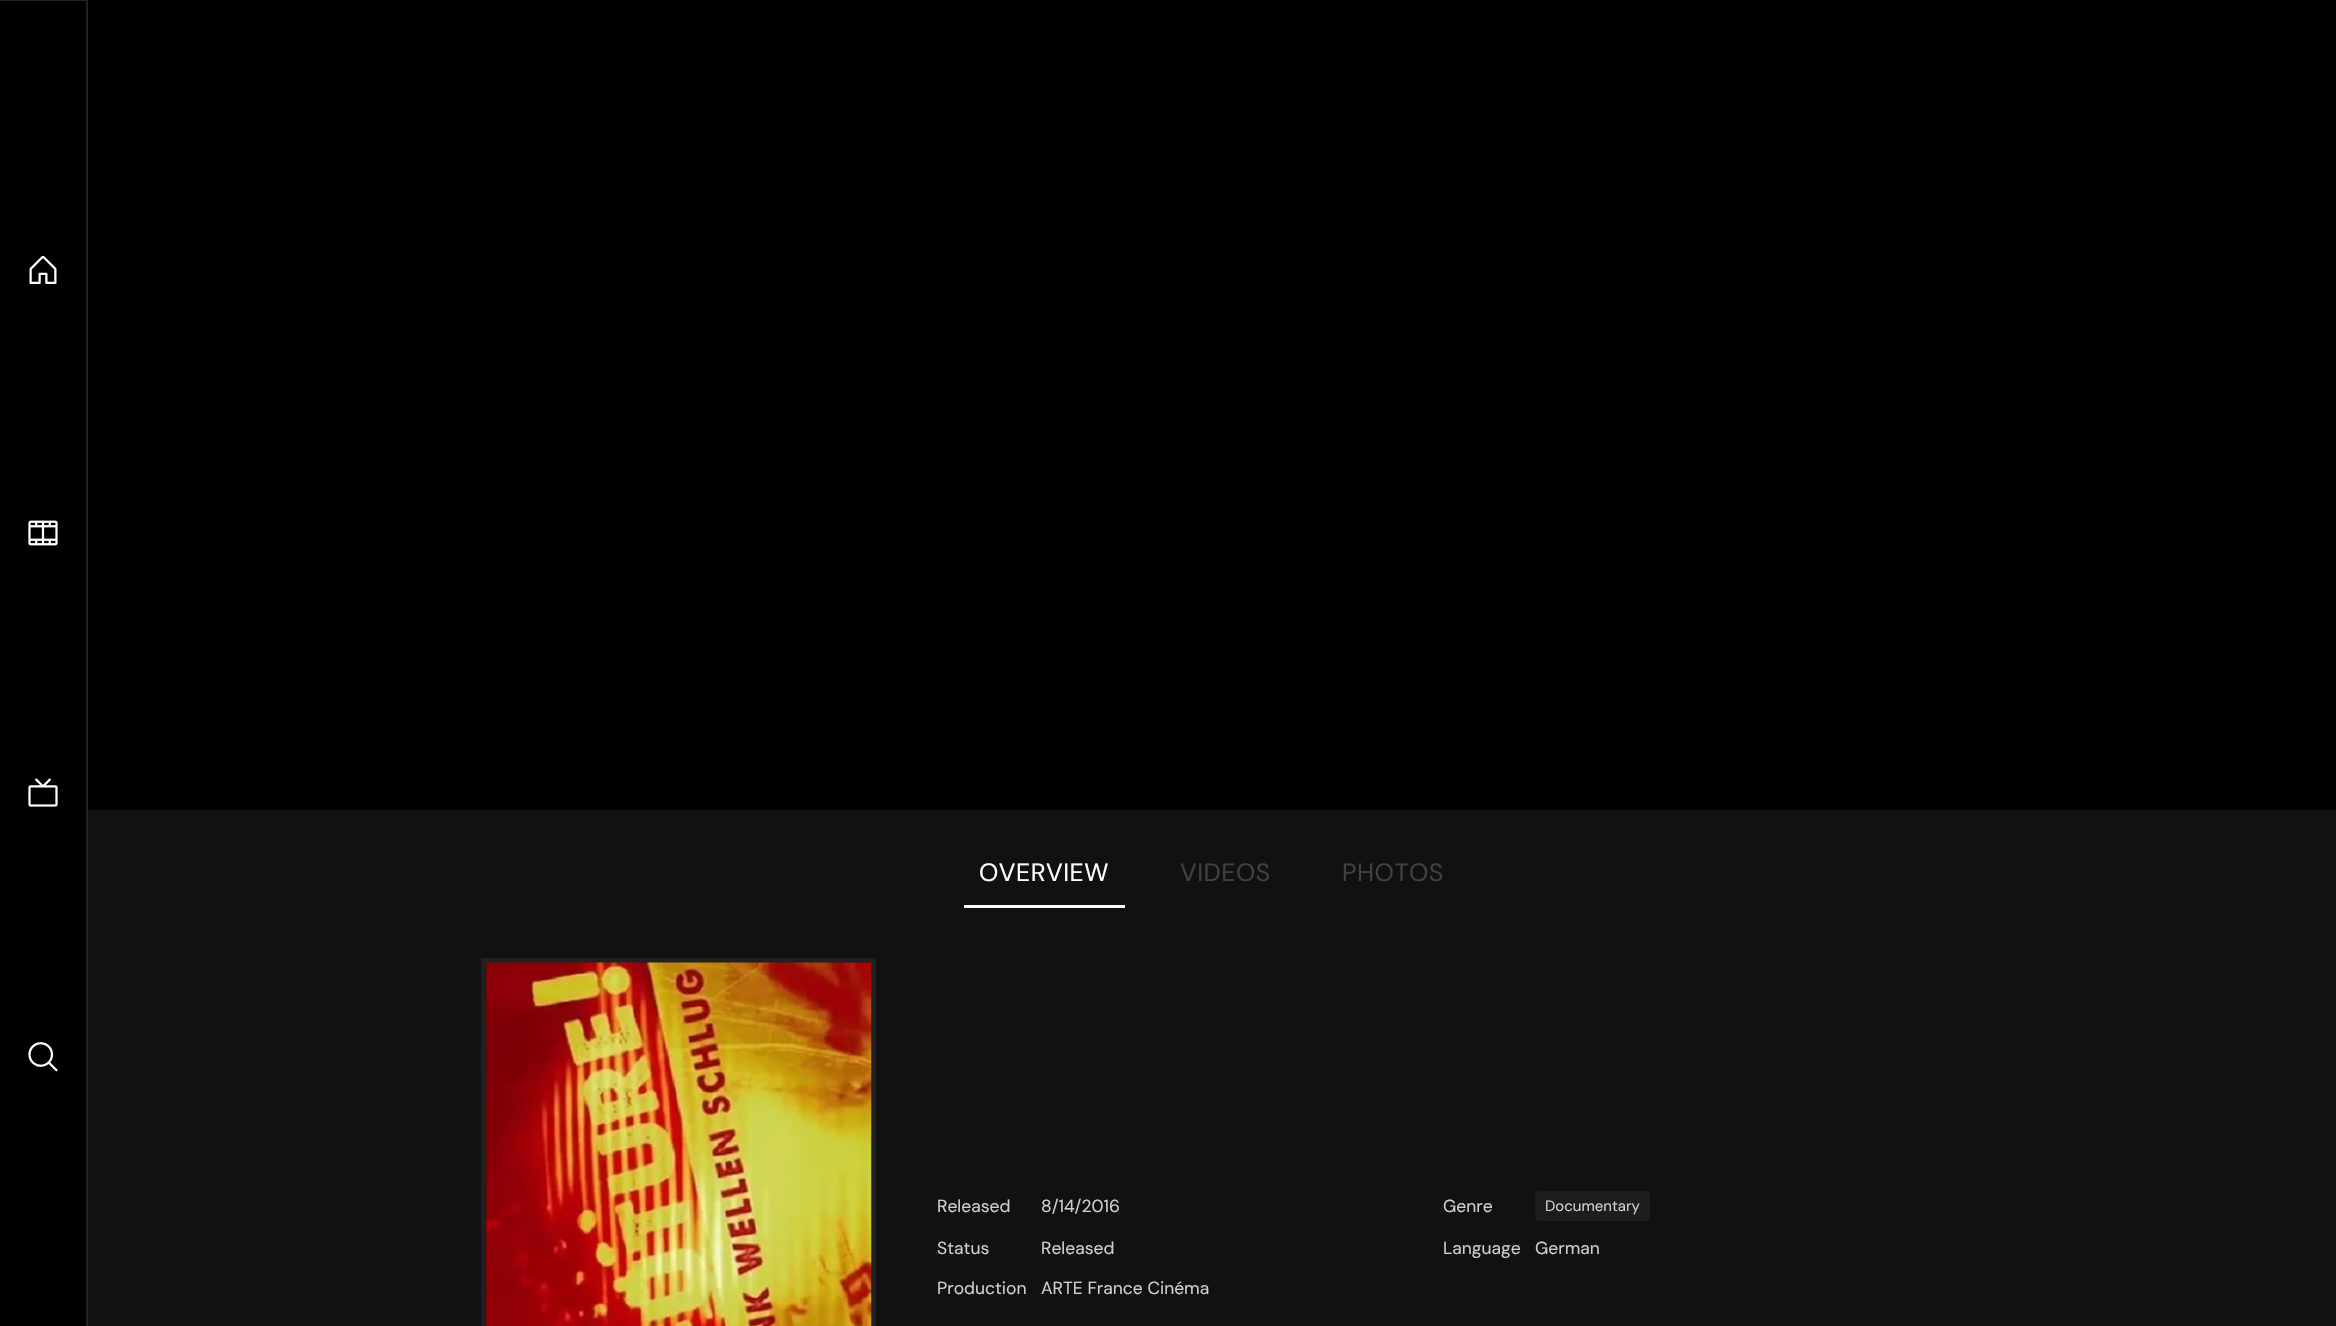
void draw(SkCanvas* canvas) {
  SkPaint paint;
  paint.setAntiAlias(true);
  auto face = [&](const char* family, int weight, float size, bool italic = false) {
    SkFontStyle style(weight, SkFontStyle::kNormal_Width,
      italic ? SkFontStyle::kItalic_Slant : SkFontStyle::kUpright_Slant);
    SkFont result(fontMgr->matchFamilyStyle(family, style), size);
    result.setSubpixel(true);
    return result;
  };
  auto writeSpaced = [&](const char* s, float x, float y, const SkFont& font, const SkPaint& ink, float letter, float word) {
    std::vector<SkGlyphID> glyphs(font.countText(s, strlen(s), SkTextEncoding::kUTF8));
    std::vector<float> xs(glyphs.size());
    font.textToGlyphs(s, strlen(s), SkTextEncoding::kUTF8, glyphs);
    font.getXPos(glyphs, xs, x);
    float extra = 0;
    for (size_t i = 0; i < glyphs.size(); i++) {
      xs[i] += extra;
      extra += letter + word * (glyphs[i] == font.unicharToGlyph(' '));
    }
    canvas->drawTextBlob(SkTextBlob::MakeFromPosHGlyphs(glyphs, xs, y, font), 0, 0, ink);
  };
  auto paste = [&](const char* path, float x, float y, float w, float h) {
    auto image = SkImages::DeferredFromEncodedData(SkData::MakeFromFileName(path));
    canvas->drawImageRect(image, SkRect::MakeXYWH(x, y, w, h), SkSamplingOptions());
  };
  auto shape = [&](const char* data, bool evenOdd = false) {
    SkPath result = *SkParsePath::FromSVGString(data);
    if (evenOdd) result.setFillType(SkPathFillType::kEvenOdd);
    return result;
  };
  canvas->clear(0xff111111);
  paint.setColor(0xff000000);
  canvas->drawRect(SkRect::MakeXYWH(0, 0, 88, 1326), paint);
  paint.setColor(0xff1f2123);
  canvas->drawPath(shape("M0 0H88L86 1H0Z"), paint);
  paint.setColor(0x339ca3af);
  canvas->drawPath(shape("M88 0V1326H86V1Z"), paint);
  paste("img/1.png", 29, 255, 28, 29);
  paste("img/2.png", 28, 520, 30, 26);
  paste("img/3.png", 28, 778, 30, 29);
  paste("img/4.png", 28, 1042, 30, 30);
  paint.setColor(0xff000000);
  canvas->drawRect(SkRect::MakeXYWH(88, 0, 2248, 810), paint);
  paint.setColor(0xffffffff);
  canvas->drawRect(SkRect::MakeXYWH(964, 905, 161, 3), paint);
  paint.setStroke(true);
  paint.setStrokeWidth(5);
  paint.setColor(0xff1f2021);
  canvas->drawRect(SkRect::MakeXYWH(483.5f, 960.5f, 390, 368), paint);
  paste("img/5.png", 486, 962, 386, 364);
  paint.setStroke(false);
  paint.setColor(0xff1c1d1e);
  canvas->drawRoundRect(SkRect::MakeXYWH(1535, 1191, 115, 30), 5, 5, paint);
  auto f0 = face("DM Sans", 400, 25);
  paint.setColor(0xffffffff);
  writeSpaced("OVERVIEW", 979, 881, f0, paint, 0.5f, 0);
  paint.setColor(0xff414141);
  writeSpaced("VIDEOS", 1180, 881, f0, paint, 0.5f, 0);
  writeSpaced("PHOTOS", 1342, 881, f0, paint, 0.5f, 0);
  auto f1 = face("DM Sans", 400, 17.5f);
  paint.setColor(0xffcfcfcf);
  {
    const struct { const char* s; float x, y; } items[] = {
      {"Released", 937, 1212},
      {"8/14/2016", 1041, 1212},
      {"Genre", 1443, 1212},
    };
    for (auto [s, x, y] : items) {
      canvas->drawString(s, x, y, f1, paint);
    }
  }
  auto f2 = face("DM Sans", 400, 15);
  canvas->drawString("Documentary", 1545, 1211, f2, paint);
  {
    const struct { const char* s; float x, y; } items[] = {
      {"Status", 937, 1254},
      {"Released", 1041, 1254},
      {"Language", 1443, 1254},
      {"German", 1535, 1254},
      {"Production", 937, 1294},
      {"ARTE France Cinéma", 1041, 1294},
    };
    for (auto [s, x, y] : items) {
      canvas->drawString(s, x, y, f1, paint);
    }
  }
}
